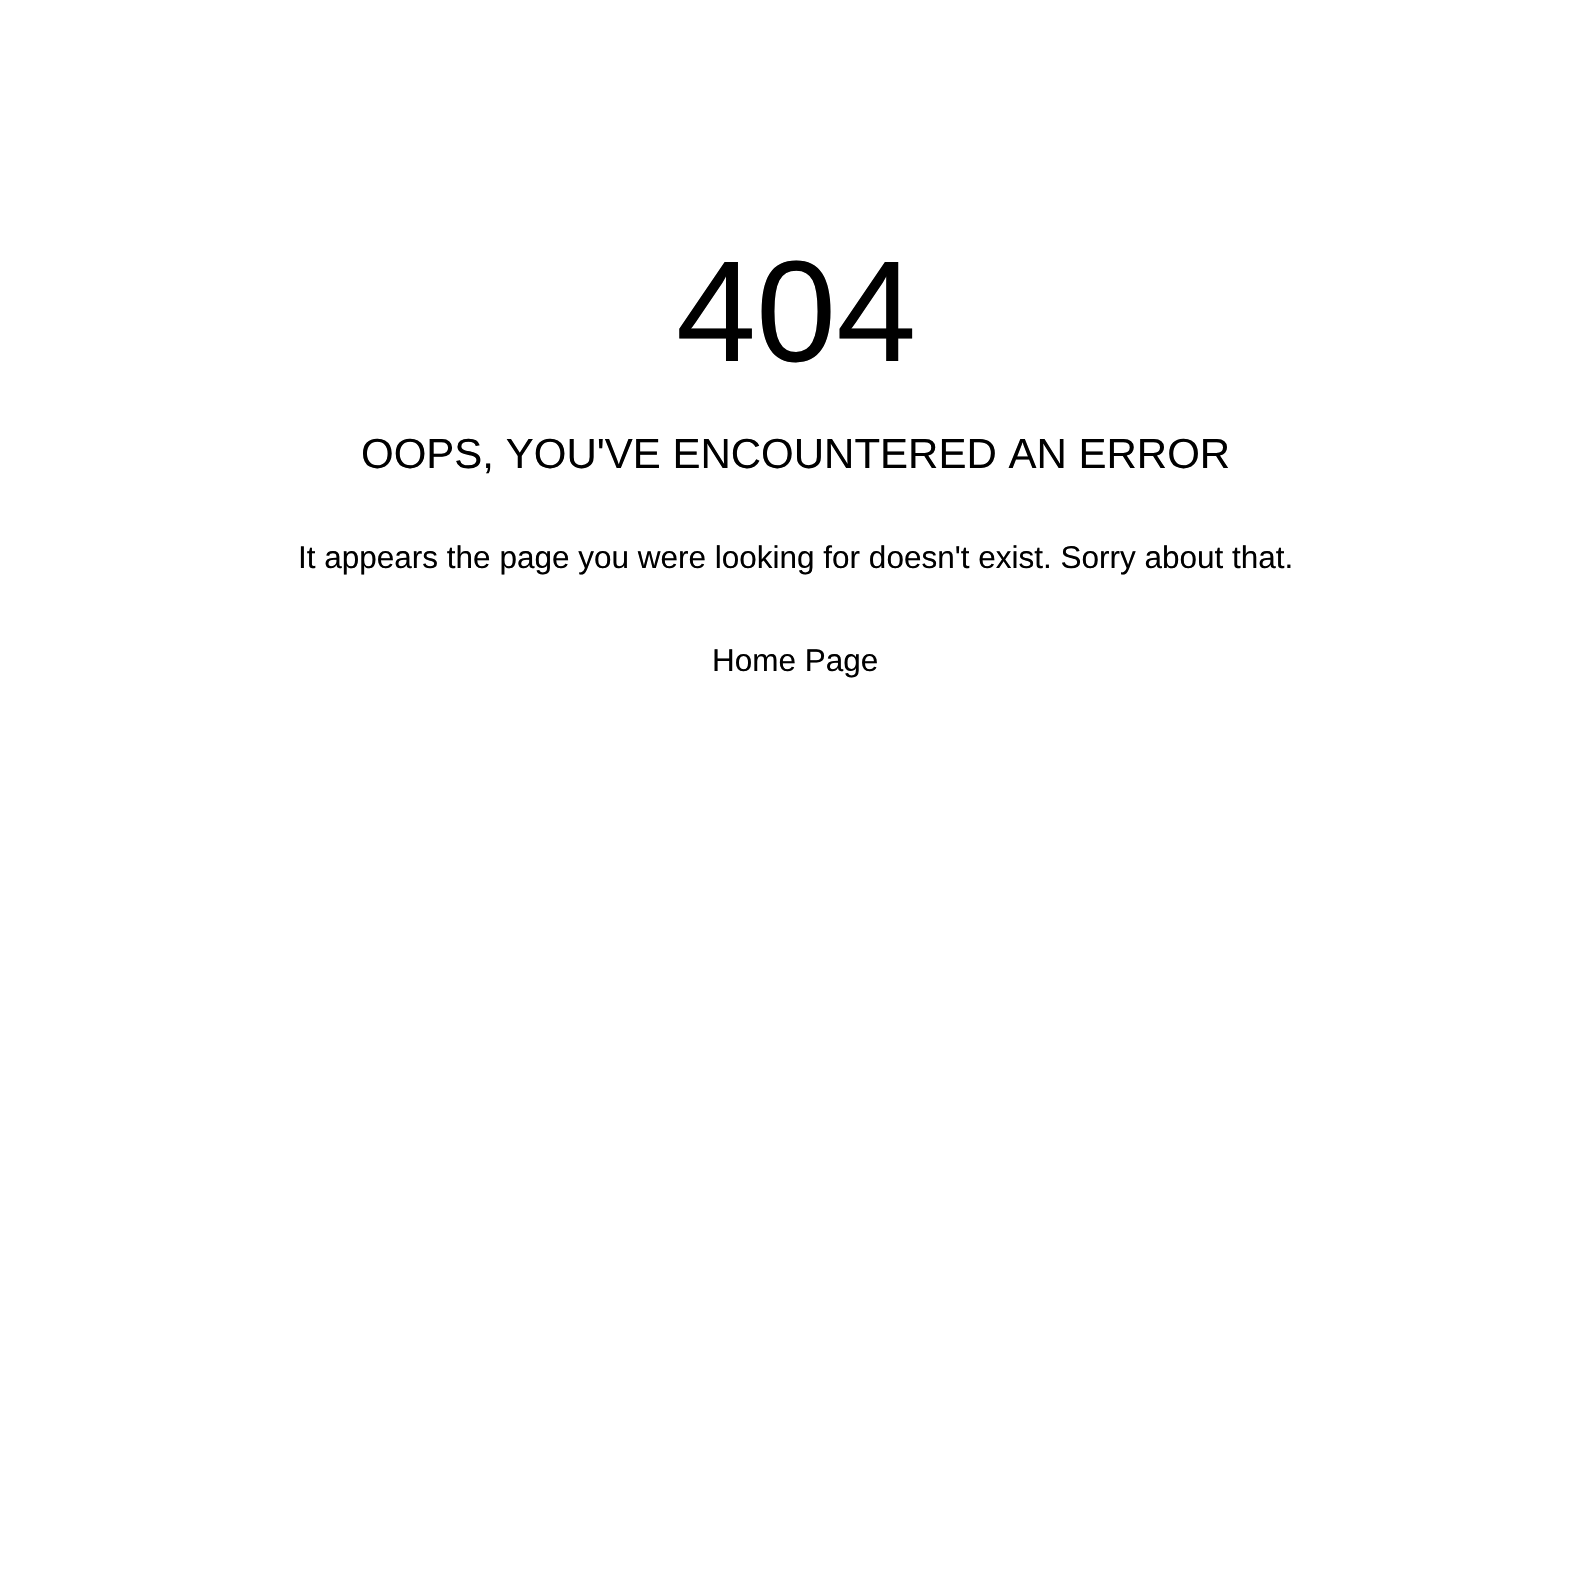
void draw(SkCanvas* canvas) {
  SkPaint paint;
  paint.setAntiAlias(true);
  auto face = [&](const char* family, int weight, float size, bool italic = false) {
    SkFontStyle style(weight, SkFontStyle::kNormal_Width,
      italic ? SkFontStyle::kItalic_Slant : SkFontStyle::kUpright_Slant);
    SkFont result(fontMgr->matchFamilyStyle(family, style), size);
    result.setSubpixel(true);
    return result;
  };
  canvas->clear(0xffffffff);
  auto f0 = face("Liberation Sans", 400, 144);
  paint.setColor(0xff000000);
  canvas->drawString("404", 676, 361, f0, paint);
  auto f1 = face("Liberation Sans", 400, 42);
  canvas->drawString("OOPS, YOU'VE ENCOUNTERED AN ERROR", 361, 468, f1, paint);
  auto f2 = face("Liberation Sans", 400, 31.5f);
  canvas->drawString("It appears the page you were looking for doesn't exist. Sorry about that.", 298, 568, f2, paint);
  canvas->drawString("Home Page", 712, 671, f2, paint);
}
